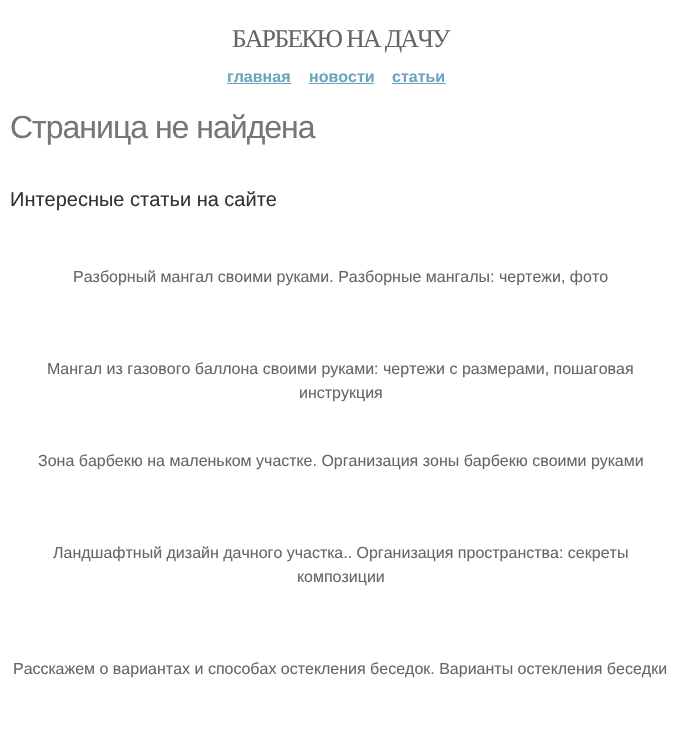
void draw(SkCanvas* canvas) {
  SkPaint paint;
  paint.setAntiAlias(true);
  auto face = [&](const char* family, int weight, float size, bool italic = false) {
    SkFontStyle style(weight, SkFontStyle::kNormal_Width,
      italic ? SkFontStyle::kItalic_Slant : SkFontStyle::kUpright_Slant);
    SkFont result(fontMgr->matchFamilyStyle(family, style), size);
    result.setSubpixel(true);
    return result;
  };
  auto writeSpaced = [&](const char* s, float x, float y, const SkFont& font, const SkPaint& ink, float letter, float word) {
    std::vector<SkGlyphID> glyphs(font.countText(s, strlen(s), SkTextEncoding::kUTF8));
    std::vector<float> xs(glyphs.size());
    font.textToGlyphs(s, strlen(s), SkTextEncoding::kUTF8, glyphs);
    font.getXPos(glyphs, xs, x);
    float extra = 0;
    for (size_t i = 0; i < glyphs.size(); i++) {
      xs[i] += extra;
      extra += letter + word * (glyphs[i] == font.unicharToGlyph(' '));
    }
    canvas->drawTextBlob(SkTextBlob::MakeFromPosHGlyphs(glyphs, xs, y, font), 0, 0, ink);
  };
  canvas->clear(0xffffffff);
  {
    const struct { float x, y, w, h; SkColor color; } items[] = {
      {227, 83, 64, 1, 0xff6da3bd},
      {309, 83, 65, 1, 0xff6da3bd},
      {392, 83, 54, 1, 0xff6da3bd},
    };
    for (auto [x, y, w, h, color] : items) {
      paint.setColor(color);
      canvas->drawRect(SkRect::MakeXYWH(x, y, w, h), paint);
    }
  }
  auto f0 = face("Liberation Serif", 400, 25.5f);
  paint.setColor(0xff666666);
  writeSpaced("БАРБЕКЮ НА ДАЧУ", 232, 47, f0, paint, -1.6f, 0);
  auto f1 = face("Liberation Sans", 700, 16);
  paint.setColor(0xff6da3bd);
  {
    const struct { const char* s; float x, y; } items[] = {
      {"главная", 227, 82},
      {"новости", 309, 82},
      {"статьи", 392, 82},
    };
    for (auto [s, x, y] : items) {
      canvas->drawString(s, x, y, f1, paint);
    }
  }
  auto f2 = face("Liberation Sans", 400, 32);
  paint.setColor(0xff767676);
  writeSpaced("Страница не найдена", 10, 138, f2, paint, -1, 0);
  auto f3 = face("Liberation Sans", 400, 20);
  paint.setColor(0xff333333);
  canvas->drawString("Интересные статьи на сайте", 10, 206, f3, paint);
  auto f4 = face("Liberation Sans", 400, 16);
  paint.setColor(0xff666666);
  {
    const struct { const char* s; float x, y; } items[] = {
      {"Разборный мангал своими руками. Разборные мангалы: чертежи, фото", 73, 282},
      {"Мангал из газового баллона своими руками: чертежи с размерами, пошаговая", 47, 374},
      {"инструкция", 299, 398},
      {"Зона барбекю на маленьком участке. Организация зоны барбекю своими руками", 38, 466},
      {"Ландшафтный дизайн дачного участка.. Организация пространства: секреты", 53, 558},
      {"композиции", 297, 582},
      {"Расскажем о вариантах и способах остекления беседок. Варианты остекления беседки", 13, 674},
    };
    for (auto [s, x, y] : items) {
      canvas->drawString(s, x, y, f4, paint);
    }
  }
}
